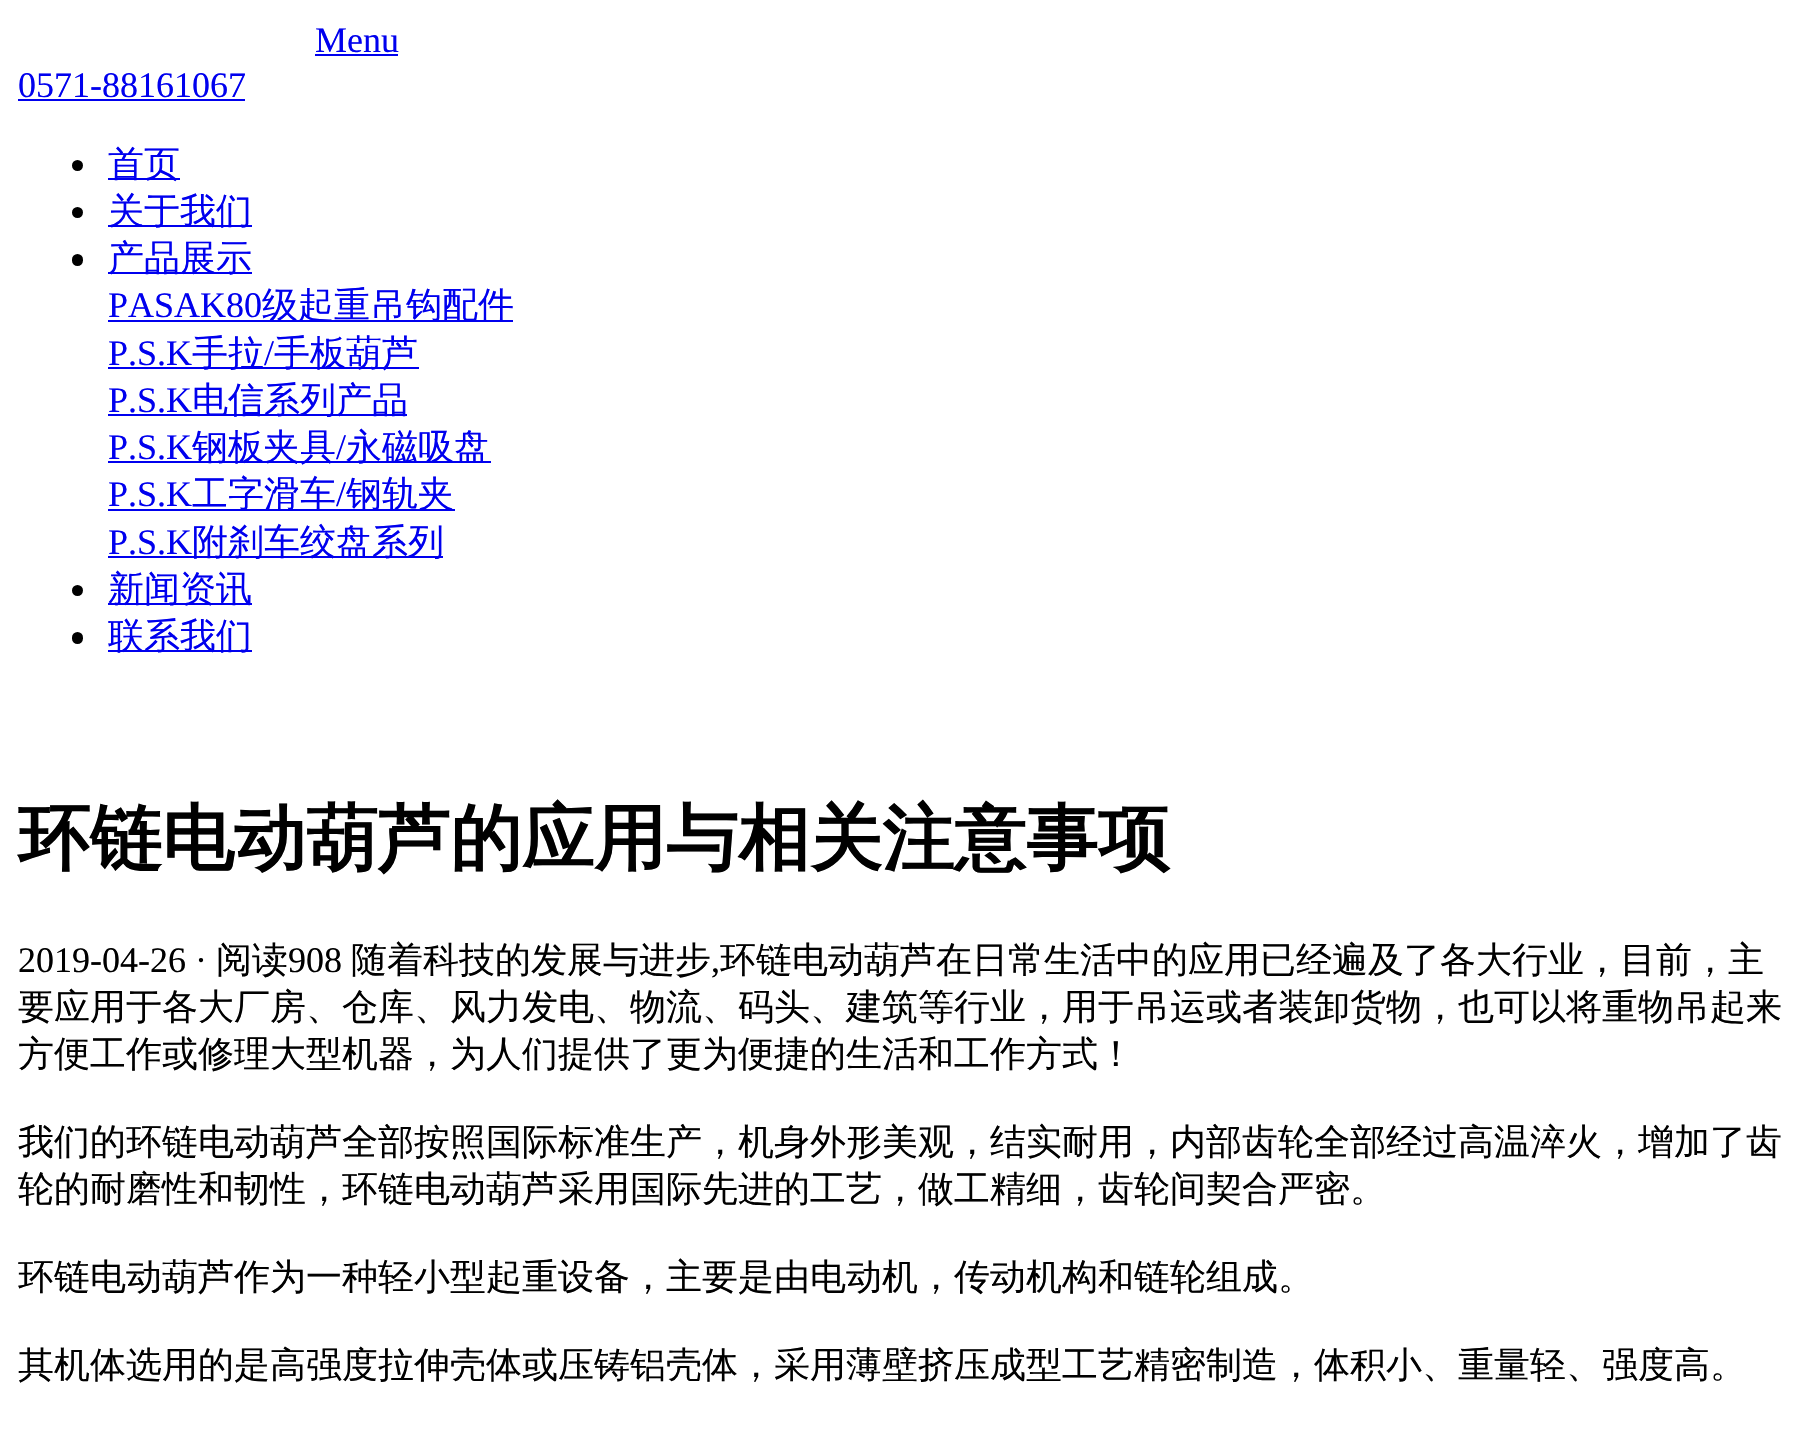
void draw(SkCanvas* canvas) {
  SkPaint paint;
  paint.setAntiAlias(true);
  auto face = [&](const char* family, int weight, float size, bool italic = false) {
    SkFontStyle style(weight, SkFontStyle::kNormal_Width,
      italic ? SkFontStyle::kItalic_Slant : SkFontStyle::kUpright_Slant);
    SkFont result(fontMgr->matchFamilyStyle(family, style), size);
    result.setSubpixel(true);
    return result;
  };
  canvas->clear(0xffffffff);
  paint.setColor(0xff0000ee);
  canvas->drawRect(SkRect::MakeXYWH(315, 54, 83, 2), paint);
  canvas->drawRect(SkRect::MakeXYWH(18, 99, 227, 2), paint);
  paint.setColor(0xff000000);
  canvas->drawCircle(77.5f, 165.5f, 5.5f, paint);
  paint.setColor(0xff0000ee);
  canvas->drawRect(SkRect::MakeXYWH(108, 178, 72, 2), paint);
  paint.setColor(0xff000000);
  canvas->drawCircle(77.5f, 212.5f, 5.5f, paint);
  paint.setColor(0xff0000ee);
  canvas->drawRect(SkRect::MakeXYWH(108, 225, 144, 2), paint);
  paint.setColor(0xff000000);
  canvas->drawRoundRect(SkRect::MakeXYWH(72, 254, 11, 12), 5.5f, 5.5f, paint);
  {
    const struct { float x, y, w, h; SkColor color; } items[] = {
      {108, 272, 144, 2, 0xff0000ee},
      {108, 320, 405, 2, 0xff0000ee},
      {108, 367, 311, 2, 0xff0000ee},
      {108, 414, 299, 2, 0xff0000ee},
      {108, 461, 383, 2, 0xff0000ee},
      {108, 509, 347, 2, 0xff0000ee},
      {108, 556, 335, 2, 0xff0000ee},
    };
    for (auto [x, y, w, h, color] : items) {
      paint.setColor(color);
      canvas->drawRect(SkRect::MakeXYWH(x, y, w, h), paint);
    }
  }
  paint.setColor(0xff000000);
  canvas->drawCircle(77.5f, 590.5f, 5.5f, paint);
  paint.setColor(0xff0000ee);
  canvas->drawRect(SkRect::MakeXYWH(108, 603, 144, 2), paint);
  paint.setColor(0xff000000);
  canvas->drawRoundRect(SkRect::MakeXYWH(72, 632, 11, 12), 5.5f, 5.5f, paint);
  paint.setColor(0xff0000ee);
  canvas->drawRect(SkRect::MakeXYWH(108, 650, 144, 2), paint);
  auto f0 = face("Liberation Serif", 400, 36);
  canvas->drawString("Menu", 315, 52, f0, paint);
  canvas->drawString("0571-88161067", 18, 97, f0, paint);
  auto f1 = face("WenQuanYi Zen Hei", 500, 36);
  {
    const struct { const char* s; float x, y; } items[] = {
      {"首页", 108, 176},
      {"关于我们", 108, 223},
      {"产品展示", 108, 270},
    };
    for (auto [s, x, y] : items) {
      canvas->drawString(s, x, y, f1, paint);
    }
  }
  canvas->drawString("PASAK80", 108, 317, f0, paint);
  canvas->drawString("级起重吊钩配件", 262, 317, f1, paint);
  canvas->drawString("P.S.K", 108, 365, f0, paint);
  canvas->drawString("手拉", 192, 365, f1, paint);
  canvas->drawString("/", 264, 365, f0, paint);
  canvas->drawString("手板葫芦", 274, 365, f1, paint);
  canvas->drawString("P.S.K", 108, 412, f0, paint);
  canvas->drawString("电信系列产品", 192, 412, f1, paint);
  canvas->drawString("P.S.K", 108, 459, f0, paint);
  canvas->drawString("钢板夹具", 192, 459, f1, paint);
  canvas->drawString("/", 336, 459, f0, paint);
  canvas->drawString("永磁吸盘", 346, 459, f1, paint);
  canvas->drawString("P.S.K", 108, 506, f0, paint);
  canvas->drawString("工字滑车", 192, 506, f1, paint);
  canvas->drawString("/", 336, 506, f0, paint);
  canvas->drawString("钢轨夹", 346, 506, f1, paint);
  canvas->drawString("P.S.K", 108, 554, f0, paint);
  {
    const struct { const char* s; float x, y; } items[] = {
      {"附刹车绞盘系列", 192, 554},
      {"新闻资讯", 108, 601},
      {"联系我们", 108, 648},
    };
    for (auto [s, x, y] : items) {
      canvas->drawString(s, x, y, f1, paint);
    }
  }
  auto f2 = face("WenQuanYi Zen Hei", 700, 72);
  paint.setColor(0xff000000);
  canvas->drawString("环链电动葫芦的应用与相关注意事项", 18, 863, f2, paint);
  canvas->drawString("2019-04-26 ·", 18, 972, f0, paint);
  canvas->drawString("阅读", 216, 972, f1, paint);
  canvas->drawString("908", 288, 972, f0, paint);
  canvas->drawString("随着科技的发展与进步", 351, 972, f1, paint);
  canvas->drawString(",", 711, 972, f0, paint);
  {
    const struct { const char* s; float x, y; } items[] = {
      {"环链电动葫芦在日常生活中的应用已经遍及了各大行业，目前，主", 720, 972},
      {"要应用于各大厂房、仓库、风力发电、物流、码头、建筑等行业，用于吊运或者装卸货物，也可以将重物吊起来", 18, 1019},
      {"方便工作或修理大型机器，为人们提供了更为便捷的生活和工作方式！", 18, 1066},
      {"我们的环链电动葫芦全部按照国际标准生产，机身外形美观，结实耐用，内部齿轮全部经过高温淬火，增加了齿", 18, 1154},
      {"轮的耐磨性和韧性，环链电动葫芦采用国际先进的工艺，做工精细，齿轮间契合严密。", 18, 1201},
      {"环链电动葫芦作为一种轻小型起重设备，主要是由电动机，传动机构和链轮组成。", 18, 1289},
      {"其机体选用的是高强度拉伸壳体或压铸铝壳体，采用薄壁挤压成型工艺精密制造，体积小、重量轻、强度高。", 18, 1377},
    };
    for (auto [s, x, y] : items) {
      canvas->drawString(s, x, y, f1, paint);
    }
  }
}
